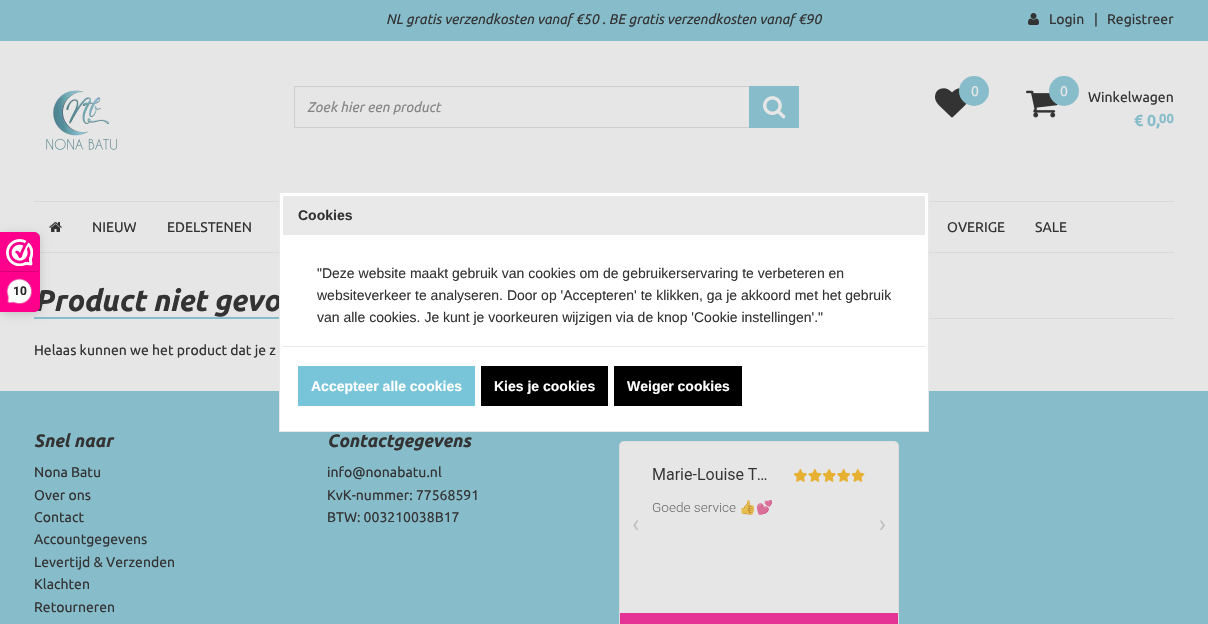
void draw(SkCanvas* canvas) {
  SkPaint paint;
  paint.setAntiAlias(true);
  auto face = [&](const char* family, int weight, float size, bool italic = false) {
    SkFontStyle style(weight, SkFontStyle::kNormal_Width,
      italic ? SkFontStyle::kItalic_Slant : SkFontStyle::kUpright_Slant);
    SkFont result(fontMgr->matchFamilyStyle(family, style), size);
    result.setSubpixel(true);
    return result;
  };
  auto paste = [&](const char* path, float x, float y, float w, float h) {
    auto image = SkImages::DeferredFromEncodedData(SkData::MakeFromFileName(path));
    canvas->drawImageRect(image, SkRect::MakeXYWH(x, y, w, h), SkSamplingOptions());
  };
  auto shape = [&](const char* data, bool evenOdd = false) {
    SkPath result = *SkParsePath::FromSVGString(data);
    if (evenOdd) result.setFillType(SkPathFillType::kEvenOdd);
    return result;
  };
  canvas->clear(0xffe6e6e6);
  paint.setColor(0xff87bdcb);
  canvas->drawRect(SkRect::MakeXYWH(0, 0, 1208, 41), paint);
  paste("img/1.png", 1028, 13, 11, 12);
  paste("img/2.png", 46, 90, 72, 60);
  paint.setStroke(true);
  paint.setStrokeWidth(1);
  paint.setColor(0xffcdcdcd);
  canvas->drawRect(SkRect::MakeXYWH(294.5f, 86.5f, 489, 41), paint);
  paint.setStroke(false);
  paint.setColor(0xff87bdcb);
  canvas->drawRect(SkRect::MakeXYWH(749, 86, 50, 42), paint);
  paste("img/3.png", 763, 96, 23, 23);
  paste("img/4.png", 935, 88, 32, 30);
  canvas->drawCircle(974, 91, 15, paint);
  paste("img/5.png", 1026, 90, 32, 28);
  canvas->drawCircle(1064, 91, 15, paint);
  paint.setColor(0xffdadada);
  canvas->drawRect(SkRect::MakeXYWH(34, 201, 1140, 1), paint);
  canvas->drawRect(SkRect::MakeXYWH(34, 252, 1140, 1), paint);
  paste("img/6.png", 49, 222, 13, 10);
  paint.setColor(0xff87bdcb);
  canvas->drawRect(SkRect::MakeXYWH(34, 317, 245, 2), paint);
  paint.setColor(0xffdadada);
  canvas->drawRect(SkRect::MakeXYWH(929, 318, 245, 1), paint);
  paint.setColor(0x26000000);
  paint.setMaskFilter(SkMaskFilter::MakeBlur(kNormal_SkBlurStyle, 5));
  canvas->drawRoundRect(SkRect::MakeXYWH(0, 234, 40, 80), 6, 6, paint);
  paint.setMaskFilter(nullptr);
  paint.setColor(0xff87bdcb);
  canvas->drawRect(SkRect::MakeXYWH(0, 391, 1208, 233), paint);
  paste("img/9.png", 619, 441, 280, 183);
  auto f0 = face("Ubuntu", 400, 14, true);
  paint.setColor(0xff333333);
  canvas->drawString("NL gratis verzendkosten vanaf €50 . BE gratis verzendkosten vanaf €90", 386, 24, f0, paint);
  auto f1 = face("Ubuntu", 400, 14);
  {
    const struct { const char* s; float x, y; } items[] = {
      {"Login", 1049, 24},
      {"|", 1094, 24},
      {"Registreer", 1107, 24},
    };
    for (auto [s, x, y] : items) {
      canvas->drawString(s, x, y, f1, paint);
    }
  }
  paint.setColor(0xff858585);
  canvas->drawString("Zoek hier een product", 307, 112, f0, paint);
  paint.setColor(0xffe6e6e6);
  canvas->drawString("0", 971, 96, f1, paint);
  canvas->drawString("0", 1060, 96, f1, paint);
  paint.setColor(0xff333333);
  canvas->drawString("Winkelwagen", 1088, 102, f1, paint);
  auto f2 = face("Ubuntu", 700, 16);
  paint.setColor(0xff87bdcb);
  canvas->drawString("€ 0,", 1134, 126, f2, paint);
  auto f3 = face("Ubuntu", 700, 13);
  canvas->drawString("00", 1159, 123, f3, paint);
  paint.setColor(0xff333333);
  {
    const struct { const char* s; float x, y; } items[] = {
      {"NIEUW", 92, 232},
      {"EDELSTENEN", 167, 232},
      {"OVERIGE", 947, 232},
      {"SALE", 1035, 232},
    };
    for (auto [s, x, y] : items) {
      canvas->drawString(s, x, y, f1, paint);
    }
  }
  auto f4 = face("Ubuntu", 700, 30, true);
  canvas->drawString("Product niet gevo", 34, 311, f4, paint);
  canvas->drawString("Helaas kunnen we het product dat je z", 34, 355, f1, paint);
  paint.setColor(0xfffe008c);
  canvas->drawPath(shape("M0 232H34C37.5 232 40 234.5 40 238V306C40 309.5 37.5 312 34 312H0Z"), paint);
  paste("img/7.png", 6, 239, 27, 27);
  paint.setColor(0xffd80077);
  canvas->drawRect(SkRect::MakeXYWH(0, 271, 39, 1), paint);
  paste("img/8.png", 6, 278, 26, 26);
  auto f5 = face("Roboto", 700, 12);
  paint.setColor(0xff272626);
  canvas->drawString("10", 13, 295, f5, paint);
  paint.setColor(0xffffffff);
  canvas->drawRect(SkRect::MakeXYWH(279.5f, 192.5f, 649, 239), paint);
  paint.setStroke(true);
  paint.setColor(0xffe8e8e8);
  canvas->drawRect(SkRect::MakeXYWH(279.5f, 192.5f, 649, 239), paint);
  paint.setStroke(false);
  paint.setColor(0xffe9e9e9);
  canvas->drawRect(SkRect::MakeXYWH(283, 196, 642, 39), paint);
  auto f6 = face("Liberation Sans", 700, 14);
  paint.setColor(0xff333333);
  canvas->drawString("Cookies", 298, 220, f6, paint);
  auto f7 = face("Liberation Sans", 400, 14);
  {
    const struct { const char* s; float x, y; } items[] = {
      {"\"Deze website maakt gebruik van cookies om de gebruikerservaring te verbeteren en", 317, 278},
      {"websiteverkeer te analyseren. Door op 'Accepteren' te klikken, ga je akkoord met het gebruik", 317, 300},
      {"van alle cookies. Je kunt je voorkeuren wijzigen via de knop 'Cookie instellingen'.\"", 317, 322},
    };
    for (auto [s, x, y] : items) {
      canvas->drawString(s, x, y, f7, paint);
    }
  }
  paint.setColor(0xffe8e8e8);
  canvas->drawRect(SkRect::MakeXYWH(283, 346, 642, 1), paint);
  paint.setColor(0xff78c5d9);
  canvas->drawRect(SkRect::MakeXYWH(298, 366, 177, 40), paint);
  paint.setColor(0xffffffff);
  canvas->drawString("Accepteer alle cookies", 311, 391, f6, paint);
  paint.setColor(0xff000000);
  canvas->drawRect(SkRect::MakeXYWH(481, 366, 127, 40), paint);
  paint.setColor(0xffffffff);
  canvas->drawString("Kies je cookies", 494, 391, f6, paint);
  paint.setColor(0xff000000);
  canvas->drawRect(SkRect::MakeXYWH(614, 366, 128, 40), paint);
  paint.setColor(0xffffffff);
  canvas->drawString("Weiger cookies", 627, 391, f6, paint);
  auto f8 = face("Ubuntu", 700, 18, true);
  paint.setColor(0xff333333);
  canvas->drawString("Snel naar", 34, 447, f8, paint);
  {
    const struct { const char* s; float x, y; } items[] = {
      {"Nona Batu", 34, 477},
      {"Over ons", 34, 500},
      {"Contact", 34, 522},
      {"Accountgegevens", 34, 544},
      {"Levertijd & Verzenden", 34, 567},
      {"Klachten", 34, 589},
      {"Retourneren", 34, 612},
    };
    for (auto [s, x, y] : items) {
      canvas->drawString(s, x, y, f1, paint);
    }
  }
  canvas->drawString("Contactgegevens", 327, 447, f8, paint);
  {
    const struct { const char* s; float x, y; } items[] = {
      {"info@nonabatu.nl", 327, 477},
      {"KvK-nummer: 77568591", 327, 500},
      {"BTW: 003210038B17", 327, 522},
    };
    for (auto [s, x, y] : items) {
      canvas->drawString(s, x, y, f1, paint);
    }
  }
}
